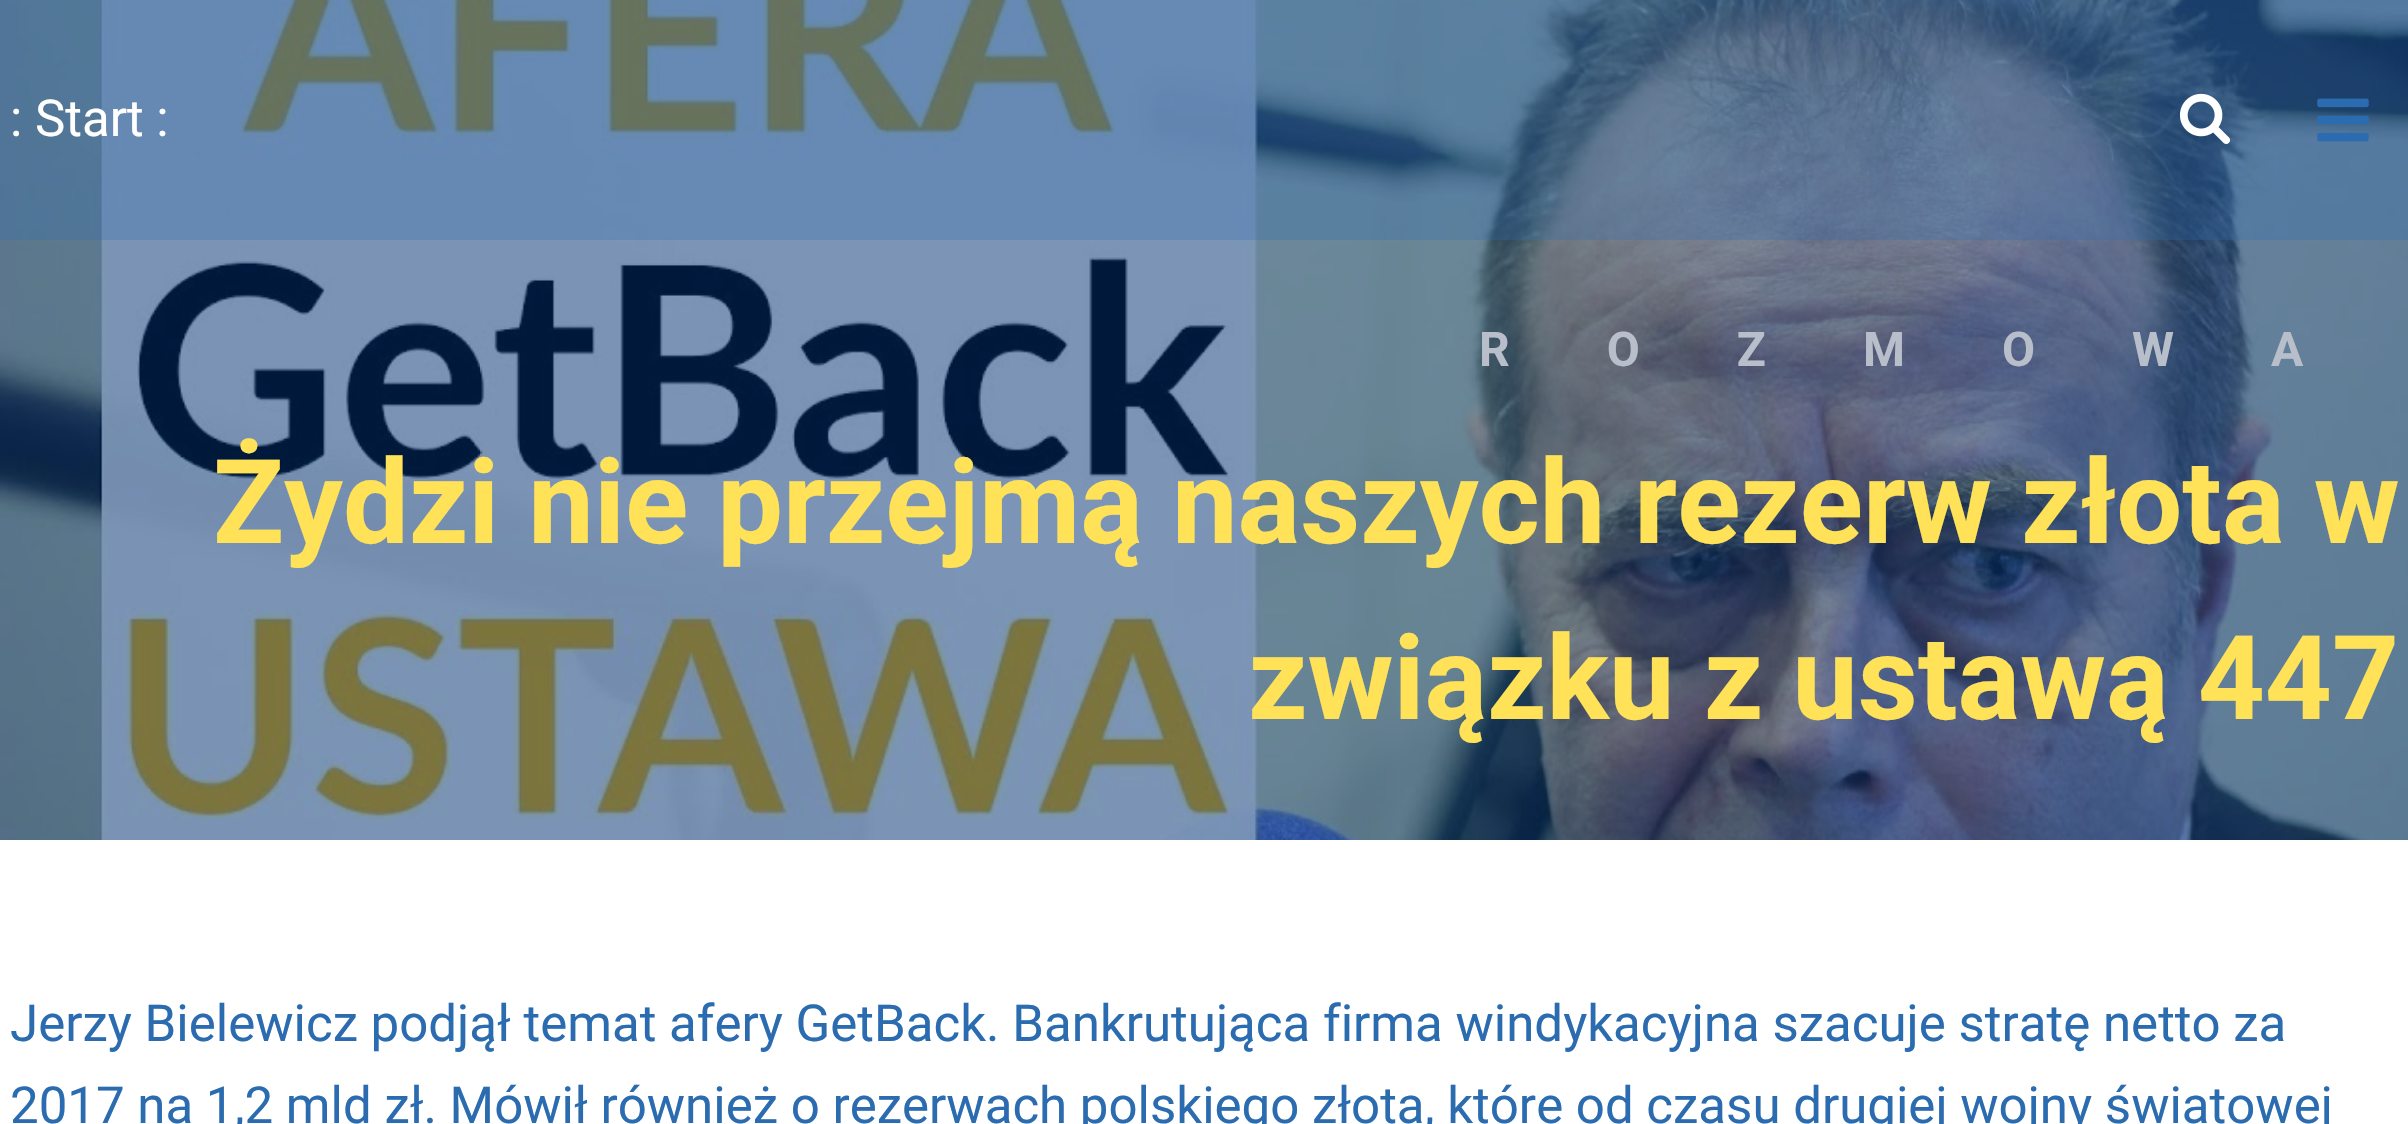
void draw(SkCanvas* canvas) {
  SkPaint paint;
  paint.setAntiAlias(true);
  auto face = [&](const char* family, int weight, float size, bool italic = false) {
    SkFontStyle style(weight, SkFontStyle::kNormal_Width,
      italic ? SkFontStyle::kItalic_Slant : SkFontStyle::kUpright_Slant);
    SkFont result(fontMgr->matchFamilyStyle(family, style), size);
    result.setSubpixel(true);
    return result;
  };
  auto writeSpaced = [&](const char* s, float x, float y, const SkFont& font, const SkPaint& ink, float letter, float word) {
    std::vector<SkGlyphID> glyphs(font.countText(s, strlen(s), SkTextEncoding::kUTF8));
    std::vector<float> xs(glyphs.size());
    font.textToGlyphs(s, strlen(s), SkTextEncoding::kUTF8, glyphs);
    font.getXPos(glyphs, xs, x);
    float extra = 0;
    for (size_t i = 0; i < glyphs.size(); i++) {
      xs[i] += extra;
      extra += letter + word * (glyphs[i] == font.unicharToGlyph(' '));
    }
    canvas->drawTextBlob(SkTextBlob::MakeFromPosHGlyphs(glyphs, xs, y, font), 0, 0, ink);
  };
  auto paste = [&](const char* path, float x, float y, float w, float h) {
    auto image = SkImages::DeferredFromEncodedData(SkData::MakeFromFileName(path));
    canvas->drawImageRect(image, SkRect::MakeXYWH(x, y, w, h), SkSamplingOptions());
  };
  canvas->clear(0xffffffff);
  paste("img/3.png", 0, 0, 2408, 840);
  paint.setColor(0x452b6cb0);
  canvas->drawRect(SkRect::MakeXYWH(0, 0, 2408, 240), paint);
  paste("img/1.png", 2179, 93, 52, 51);
  paste("img/2.png", 2317, 98, 52, 44);
  auto f0 = face("Roboto", 400, 51);
  paint.setColor(0xffffffff);
  canvas->drawString(": Start :", 10, 136, f0, paint);
  auto f1 = face("Roboto", 700, 48);
  paint.setColor(0xffb8bfca);
  writeSpaced("ROZMOWA", 1479, 366, f1, paint, 97, 0);
  auto f2 = face("Roboto", 700, 117);
  paint.setColor(0xffffe258);
  canvas->drawString("Żydzi nie przejmą naszych rezerw złota w", 213, 543, f2, paint);
  canvas->drawString("związku z ustawą 447", 1248, 719, f2, paint);
  paint.setColor(0xff2b6cb0);
  canvas->drawString("Jerzy Bielewicz podjął temat afery GetBack. Bankrutująca firma windykacyjna szacuje stratę netto za", 10, 1041, f0, paint);
  canvas->drawString("2017 na 1,2 mld zł. Mówił również o rezerwach polskiego złota, które od czasu drugiej wojny światowej", 10, 1123, f0, paint);
}
